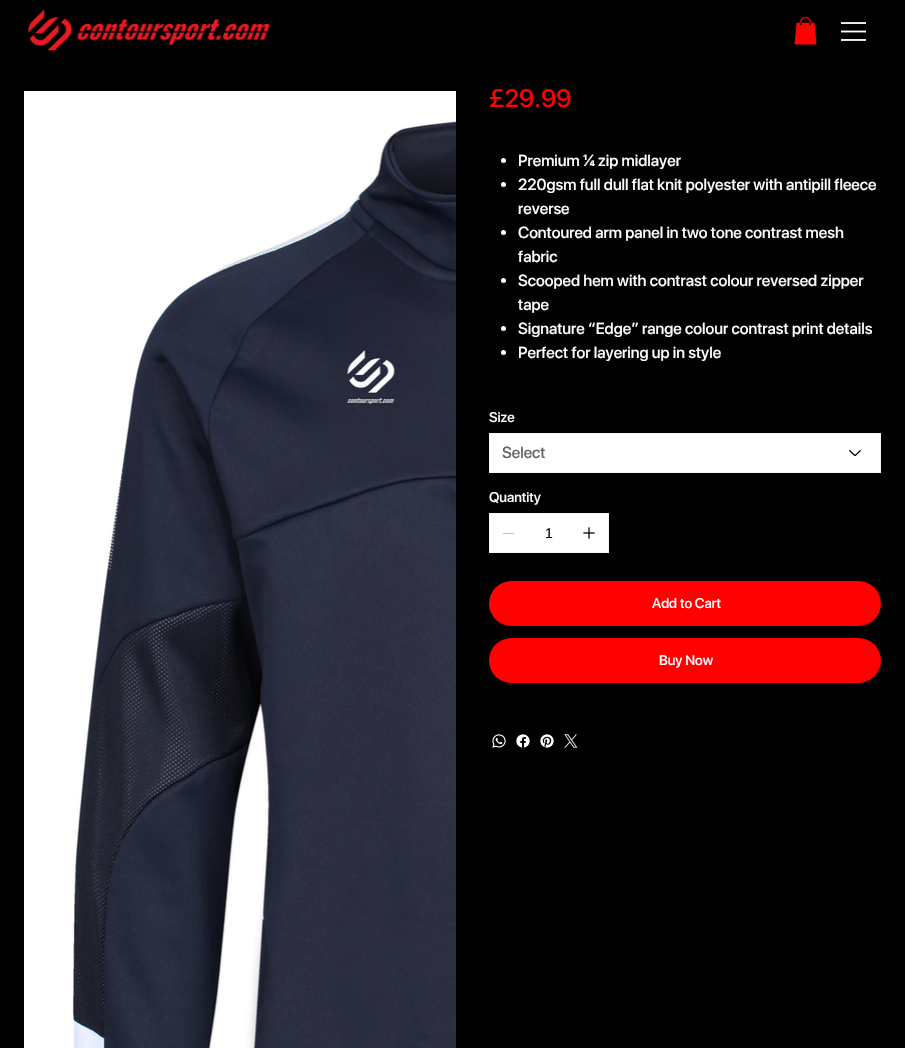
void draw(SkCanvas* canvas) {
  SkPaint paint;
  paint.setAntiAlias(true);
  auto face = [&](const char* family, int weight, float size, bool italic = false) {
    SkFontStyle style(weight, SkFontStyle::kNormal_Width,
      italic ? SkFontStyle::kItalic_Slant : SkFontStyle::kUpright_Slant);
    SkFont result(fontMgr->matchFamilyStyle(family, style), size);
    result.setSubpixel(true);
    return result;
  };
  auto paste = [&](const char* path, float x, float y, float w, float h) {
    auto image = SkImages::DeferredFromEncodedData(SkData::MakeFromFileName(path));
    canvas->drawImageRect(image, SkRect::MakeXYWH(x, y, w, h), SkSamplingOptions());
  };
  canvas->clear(0xff000000);
  paste("img/1.png", 28, 9, 242, 42);
  paste("img/2.png", 794, 17, 23, 28);
  paste("img/3.png", 841, 22, 25, 19);
  paste("img/4.png", 24, 91, 432, 957);
  paint.setColor(0xffffffff);
  canvas->drawCircle(503.5f, 160.5f, 2.5f, paint);
  canvas->drawCircle(503.5f, 184.5f, 2.5f, paint);
  canvas->drawCircle(503.5f, 232.5f, 2.5f, paint);
  canvas->drawCircle(503.5f, 280.5f, 2.5f, paint);
  canvas->drawCircle(503.5f, 328.5f, 2.5f, paint);
  canvas->drawCircle(503.5f, 352.5f, 2.5f, paint);
  canvas->drawRect(SkRect::MakeXYWH(489.5f, 433.5f, 391, 39), paint);
  paint.setStroke(true);
  paint.setStrokeWidth(1);
  paint.setColor(0xfff6f6f6);
  canvas->drawRect(SkRect::MakeXYWH(489.5f, 433.5f, 391, 39), paint);
  paste("img/5.png", 849, 450, 12, 6);
  paint.setStroke(false);
  paint.setColor(0xffffffff);
  canvas->drawRect(SkRect::MakeXYWH(489.5f, 513.5f, 119, 39), paint);
  paint.setStroke(true);
  paint.setColor(0xfff6f6f6);
  canvas->drawRect(SkRect::MakeXYWH(489.5f, 513.5f, 119, 39), paint);
  paint.setStroke(false);
  paint.setColor(0xffc2c2c2);
  canvas->drawRect(SkRect::MakeXYWH(503, 533, 11, 1), paint);
  paste("img/6.png", 583, 527, 12, 12);
  paint.setColor(0xffff0101);
  canvas->drawRoundRect(SkRect::MakeXYWH(489, 581, 392, 45), 22.5f, 22.5f, paint);
  canvas->drawRoundRect(SkRect::MakeXYWH(489, 638, 392, 45), 22.5f, 22.5f, paint);
  paste("img/7.png", 492, 734, 14, 14);
  paste("img/8.png", 516, 734, 14, 14);
  paste("img/9.png", 540, 734, 14, 14);
  paste("img/10.png", 564, 734, 14, 14);
  auto f0 = face("SF Pro Display", 500, 25);
  canvas->drawString("£29.99", 489, 107, f0, paint);
  auto f1 = face("SF Pro Display", 500, 16);
  paint.setColor(0xffffffff);
  {
    const struct { const char* s; float x, y; } items[] = {
      {"Premium ¼ zip midlayer", 518, 166},
      {"220gsm full dull flat knit polyester with antipill fleece", 518, 190},
      {"reverse", 518, 214},
      {"Contoured arm panel in two tone contrast mesh", 518, 238},
      {"fabric", 518, 262},
      {"Scooped hem with contrast colour reversed zipper", 518, 286},
      {"tape", 518, 310},
      {"Signature “Edge” range colour contrast print details", 518, 334},
      {"Perfect for layering up in style", 518, 358},
    };
    for (auto [s, x, y] : items) {
      canvas->drawString(s, x, y, f1, paint);
    }
  }
  auto f2 = face("SF Pro Display", 500, 14);
  canvas->drawString("Size", 489, 422, f2, paint);
  paint.setColor(0xff646464);
  canvas->drawString("Select", 502, 458, f1, paint);
  paint.setColor(0xffffffff);
  canvas->drawString("Quantity", 489, 502, f2, paint);
  auto f3 = face("Liberation Sans", 400, 14);
  paint.setColor(0xff000000);
  canvas->drawString("1", 545, 538, f3, paint);
  paint.setColor(0xffffffff);
  canvas->drawString("Add to Cart", 652, 608, f2, paint);
  canvas->drawString("Buy Now", 659, 665, f2, paint);
}
